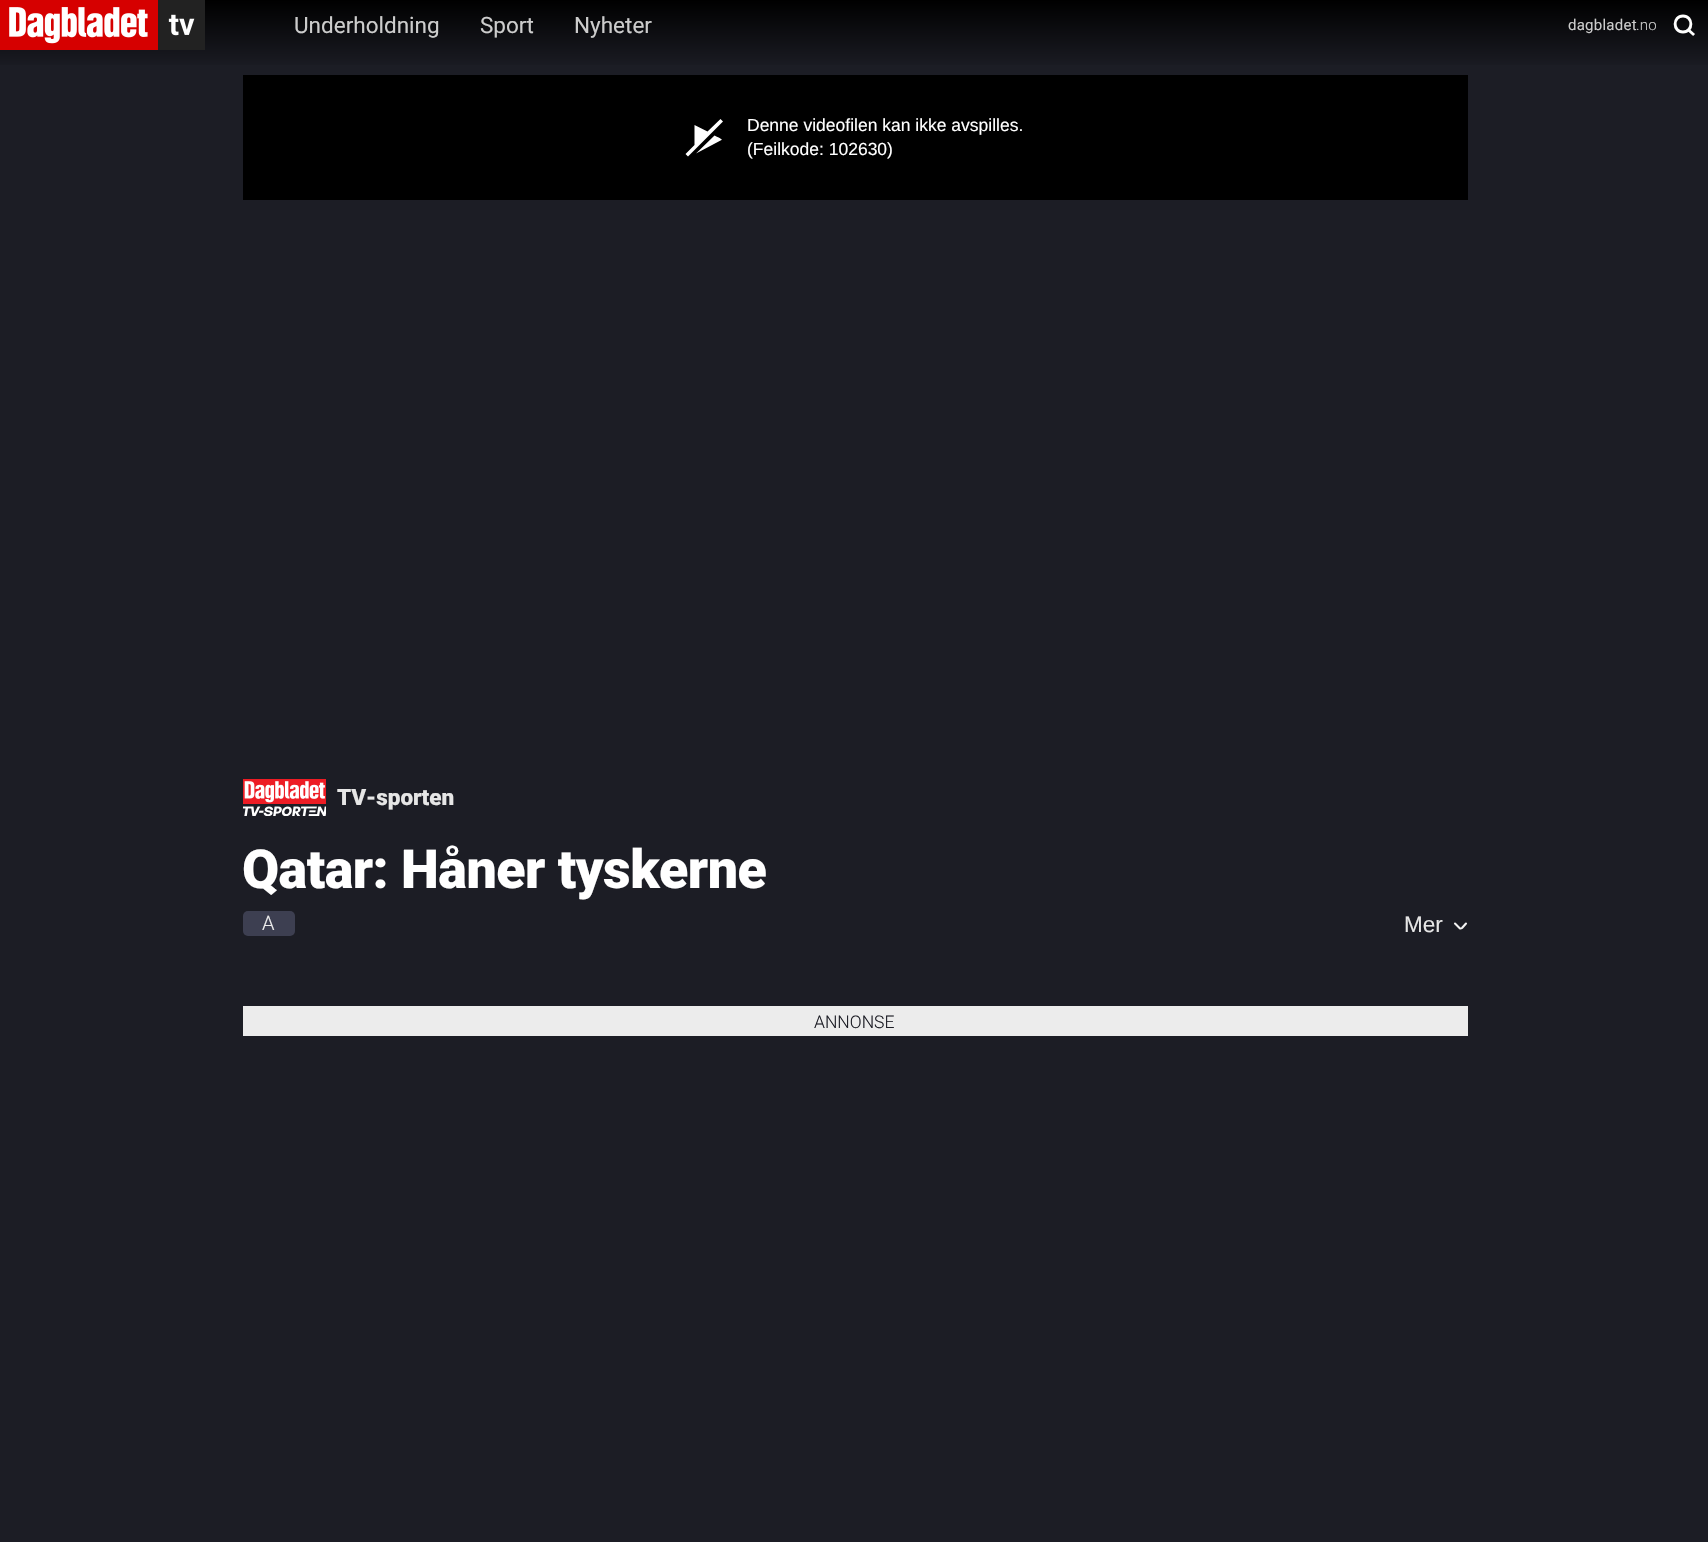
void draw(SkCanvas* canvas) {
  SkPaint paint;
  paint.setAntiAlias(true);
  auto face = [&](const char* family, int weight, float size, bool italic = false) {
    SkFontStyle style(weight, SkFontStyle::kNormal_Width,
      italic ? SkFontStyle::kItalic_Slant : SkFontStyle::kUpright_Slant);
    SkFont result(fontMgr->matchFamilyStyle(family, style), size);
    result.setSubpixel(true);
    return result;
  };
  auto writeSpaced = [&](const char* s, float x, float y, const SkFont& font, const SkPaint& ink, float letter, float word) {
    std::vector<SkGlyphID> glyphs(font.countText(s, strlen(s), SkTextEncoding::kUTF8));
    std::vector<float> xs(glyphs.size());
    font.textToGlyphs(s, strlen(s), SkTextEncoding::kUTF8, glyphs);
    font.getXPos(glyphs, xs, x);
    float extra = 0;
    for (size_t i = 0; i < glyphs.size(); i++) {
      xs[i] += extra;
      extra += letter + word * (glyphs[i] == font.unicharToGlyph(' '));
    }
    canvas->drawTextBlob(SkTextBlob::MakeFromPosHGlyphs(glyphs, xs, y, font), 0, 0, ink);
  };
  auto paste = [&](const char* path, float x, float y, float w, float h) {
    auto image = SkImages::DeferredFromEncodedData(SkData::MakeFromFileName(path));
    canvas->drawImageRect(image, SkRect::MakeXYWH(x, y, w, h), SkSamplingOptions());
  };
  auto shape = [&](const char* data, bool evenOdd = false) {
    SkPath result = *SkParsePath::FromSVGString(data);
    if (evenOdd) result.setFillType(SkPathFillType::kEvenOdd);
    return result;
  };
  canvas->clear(0xff1c1d25);
  {
    const SkColor colors[] = {0xff000000, 0xff1c1d25};
    const float stops[] = {0, 1};
    const SkPoint ends[] = {{854, 0}, {854, 70}};
    paint.setShader(SkGradientShader::MakeLinear(ends, colors, stops, 2, SkTileMode::kClamp));
    paint.setAlpha(255);
  }
  canvas->drawRect(SkRect::MakeXYWH(0, 0, 1708, 65), paint);
  paste("img/1.png", 0, 0, 205, 50);
  paint.setStroke(true);
  paint.setStrokeWidth(2.9f);
  paint.setStrokeCap(SkPaint::kRound_Cap);
  paint.setStrokeJoin(SkPaint::kRound_Join);
  paint.setShader(nullptr);
  paint.setColor(0xffffffff);
  canvas->drawPath(shape("M1683 32C1693.5 32 1693.5 16 1683 16C1672.5 16 1672.5 32 1683 32Z"), paint);
  paint.setStrokeCap(SkPaint::kSquare_Cap);
  canvas->drawPath(shape("M1693 34L1688.5 30"), paint);
  paint.setStroke(false);
  paint.setColor(0xff000000);
  canvas->drawRect(SkRect::MakeXYWH(243, 75, 1225, 125), paint);
  paint.setColor(0xffffffff);
  canvas->drawPath(shape("M721.5 140L696 153.5L714.5 135.5C721.5 139 722.5 139.5 721.5 140ZM720.5 119L707.5 131.5L694.5 125V145L685.5 154L688 156.5L723 121.5Z"), paint);
  paste("img/2.png", 243, 779, 83, 37);
  paint.setColor(0xff3d3f51);
  canvas->drawRoundRect(SkRect::MakeXYWH(243, 911, 52, 25), 5, 5, paint);
  paint.setStroke(true);
  paint.setStrokeWidth(2.1f);
  paint.setStrokeCap(SkPaint::kRound_Cap);
  paint.setColor(0xfff3f3f3);
  canvas->drawPath(shape("M1455 923.5L1459.5 928C1460.5 929 1460.5 929 1462 928L1466 923.5"), paint);
  paint.setStroke(false);
  paint.setColor(0xffececec);
  canvas->drawRect(SkRect::MakeXYWH(243, 1006, 1225, 30), paint);
  auto f0 = face("Roboto", 400, 22.5f);
  paint.setColor(0xffcccccc);
  {
    const struct { const char* s; float x, y; } items[] = {
      {"Underholdning", 294, 33},
      {"Sport", 480, 33},
      {"Nyheter", 574, 33},
    };
    for (auto [s, x, y] : items) {
      canvas->drawString(s, x, y, f0, paint);
    }
  }
  auto f1 = face("Roboto", 400, 15);
  writeSpaced("dagbladet", 1568, 30, f1, paint, 0.25f, 0);
  auto f2 = face("Roboto", 300, 15);
  writeSpaced(".no", 1636, 30, f2, paint, 0.25f, 0);
  auto f3 = face("Liberation Sans", 400, 17.5f);
  paint.setColor(0xffffffff);
  canvas->drawString("Denne videofilen kan ikke avspilles.", 747, 131, f3, paint);
  canvas->drawString("(Feilkode: 102630)", 747, 155, f3, paint);
  auto f4 = face("Roboto", 900, 22.5f);
  paint.setColor(0xffe6e6e6);
  canvas->drawString("TV-sporten", 337, 805, f4, paint);
  auto f5 = face("Roboto", 900, 53.75f);
  paint.setColor(0xffffffff);
  writeSpaced("Qatar: Håner tyskerne", 242, 888, f5, paint, -0.5f, 0);
  auto f6 = face("Roboto", 300, 20);
  paint.setColor(0xffececec);
  canvas->drawString("A", 262, 930, f6, paint);
  auto f7 = face("Liberation Sans", 400, 22.5f);
  paint.setColor(0xffe6e6e6);
  canvas->drawString("Mer", 1404, 932, f7, paint);
  auto f8 = face("Roboto", 300, 17.5f);
  paint.setColor(0xff1c1d25);
  canvas->drawString("ANNONSE", 814, 1028, f8, paint);
}
